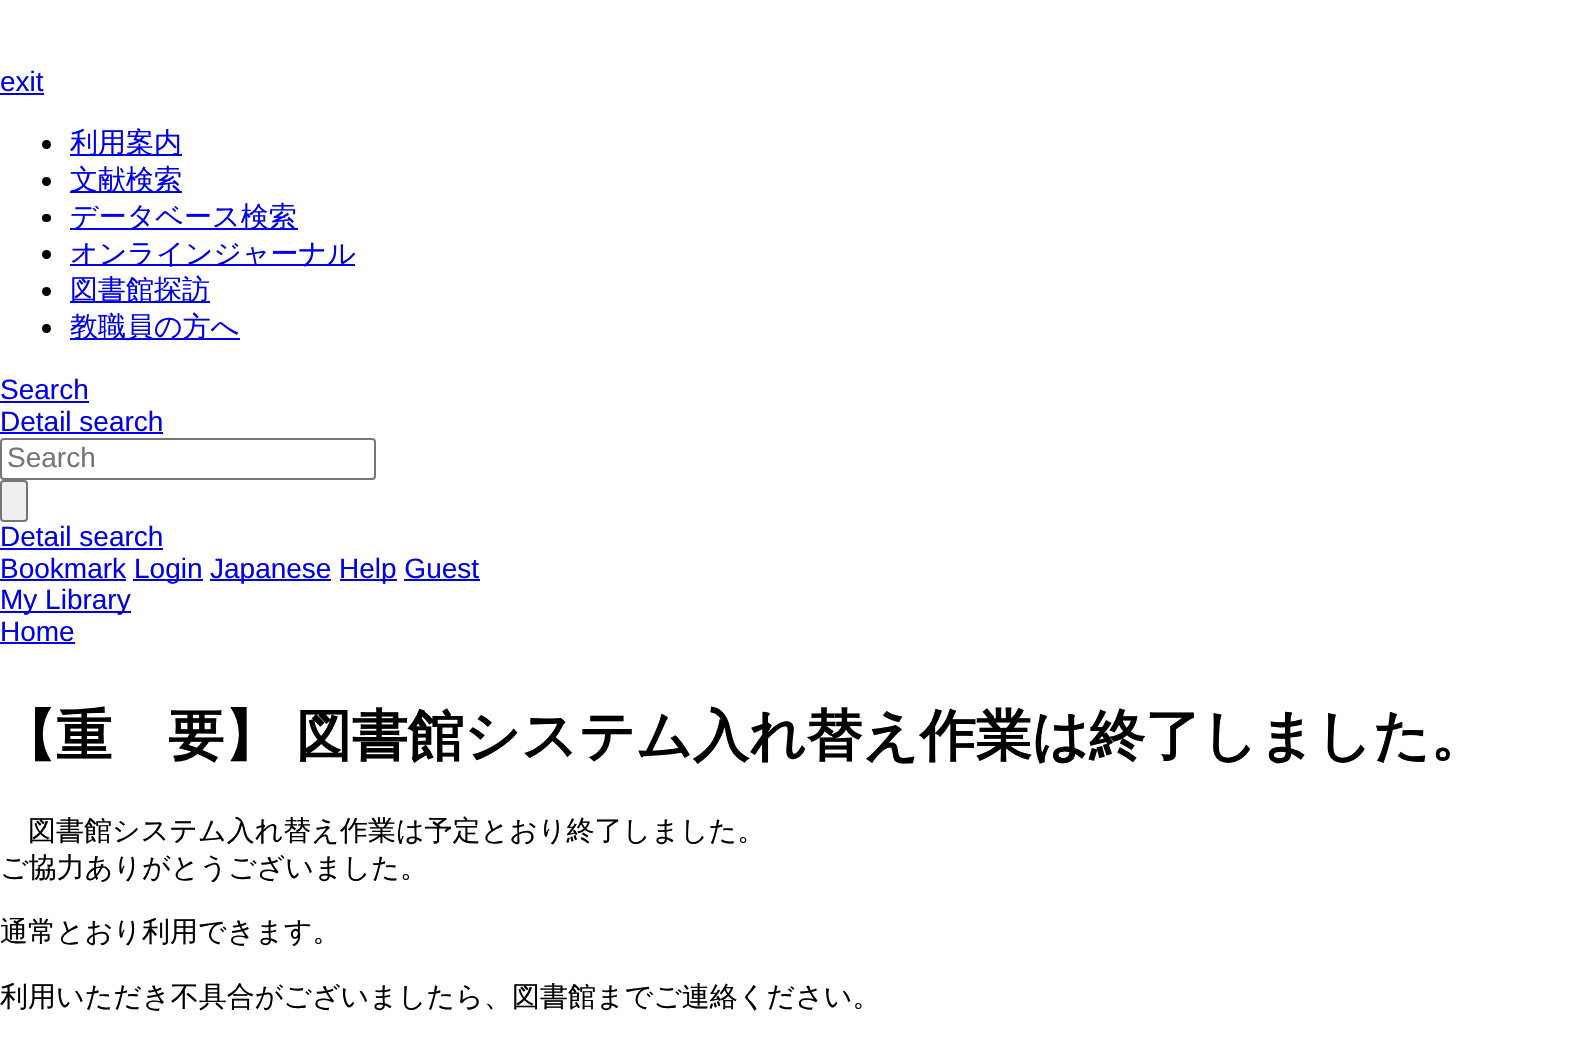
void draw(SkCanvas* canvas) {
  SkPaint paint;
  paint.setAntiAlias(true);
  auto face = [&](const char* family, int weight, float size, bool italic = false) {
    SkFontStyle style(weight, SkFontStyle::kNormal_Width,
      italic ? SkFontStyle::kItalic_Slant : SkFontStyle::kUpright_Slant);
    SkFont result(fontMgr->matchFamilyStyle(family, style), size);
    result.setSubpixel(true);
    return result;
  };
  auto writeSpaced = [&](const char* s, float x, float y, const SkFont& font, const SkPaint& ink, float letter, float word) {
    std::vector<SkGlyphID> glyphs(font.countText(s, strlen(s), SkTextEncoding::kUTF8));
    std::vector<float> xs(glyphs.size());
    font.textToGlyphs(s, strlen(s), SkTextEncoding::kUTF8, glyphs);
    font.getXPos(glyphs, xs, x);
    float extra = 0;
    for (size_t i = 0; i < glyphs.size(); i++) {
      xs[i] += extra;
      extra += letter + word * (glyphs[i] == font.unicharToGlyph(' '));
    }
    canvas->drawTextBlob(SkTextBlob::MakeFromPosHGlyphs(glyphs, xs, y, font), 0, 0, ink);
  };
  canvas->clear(0xffffffff);
  paint.setColor(0xff0000ee);
  canvas->drawRect(SkRect::MakeXYWH(0, 93, 44, 2), paint);
  paint.setColor(0xff000000);
  canvas->drawCircle(46.5f, 144.5f, 4.5f, paint);
  paint.setColor(0xff0000ee);
  canvas->drawRect(SkRect::MakeXYWH(70, 154, 112, 2), paint);
  paint.setColor(0xff000000);
  canvas->drawCircle(46.5f, 181.5f, 4.5f, paint);
  paint.setColor(0xff0000ee);
  canvas->drawRect(SkRect::MakeXYWH(70, 191, 112, 2), paint);
  paint.setColor(0xff000000);
  canvas->drawRoundRect(SkRect::MakeXYWH(42, 214, 9, 8), 4, 4, paint);
  paint.setColor(0xff0000ee);
  canvas->drawRect(SkRect::MakeXYWH(70, 228, 228, 2), paint);
  paint.setColor(0xff000000);
  canvas->drawCircle(46.5f, 254.5f, 4.5f, paint);
  paint.setColor(0xff0000ee);
  canvas->drawRect(SkRect::MakeXYWH(70, 264, 285, 2), paint);
  paint.setColor(0xff000000);
  canvas->drawCircle(46.5f, 291.5f, 4.5f, paint);
  paint.setColor(0xff0000ee);
  canvas->drawRect(SkRect::MakeXYWH(70, 301, 140, 2), paint);
  paint.setColor(0xff000000);
  canvas->drawCircle(46.5f, 328.5f, 4.5f, paint);
  {
    const struct { float x, y, w, h; SkColor color; } items[] = {
      {70, 338, 170, 2, 0xff0000ee},
      {0, 401, 89, 2, 0xff0000ee},
      {0, 432, 163, 2, 0xff0000ee},
    };
    for (auto [x, y, w, h, color] : items) {
      paint.setColor(color);
      canvas->drawRect(SkRect::MakeXYWH(x, y, w, h), paint);
    }
  }
  paint.setStroke(true);
  paint.setStrokeWidth(2);
  paint.setColor(0xff767676);
  canvas->drawRoundRect(SkRect::MakeXYWH(1, 439, 374, 40), 3, 3, paint);
  paint.setStroke(false);
  paint.setColor(0xffefefef);
  canvas->drawRoundRect(SkRect::MakeXYWH(1, 481, 26, 40), 3, 3, paint);
  paint.setStroke(true);
  paint.setColor(0xff767676);
  canvas->drawRoundRect(SkRect::MakeXYWH(1, 481, 26, 40), 3, 3, paint);
  paint.setStroke(false);
  {
    const struct { float x, y, w, h; SkColor color; } items[] = {
      {0, 548, 163, 2, 0xff0000ee},
      {0, 579, 126, 2, 0xff0000ee},
      {133, 579, 70, 2, 0xff0000ee},
      {210, 579, 121, 2, 0xff0000ee},
      {340, 579, 57, 2, 0xff0000ee},
      {404, 579, 76, 2, 0xff0000ee},
      {0, 611, 131, 2, 0xff0000ee},
      {0, 642, 75, 2, 0xff0000ee},
    };
    for (auto [x, y, w, h, color] : items) {
      paint.setColor(color);
      canvas->drawRect(SkRect::MakeXYWH(x, y, w, h), paint);
    }
  }
  auto f0 = face("Liberation Sans", 400, 28);
  canvas->drawString("exit", 0, 91, f0, paint);
  auto f1 = face("WenQuanYi Zen Hei", 500, 28);
  {
    const struct { const char* s; float x, y; } items[] = {
      {"利用案内", 70, 152},
      {"文献検索", 70, 189},
      {"データベース検索", 70, 226},
      {"オンラインジャーナル", 70, 263},
      {"図書館探訪", 70, 299},
      {"教職員の方へ", 70, 336},
    };
    for (auto [s, x, y] : items) {
      canvas->drawString(s, x, y, f1, paint);
    }
  }
  canvas->drawString("Search", 0, 399, f0, paint);
  canvas->drawString("Detail search", 0, 431, f0, paint);
  paint.setColor(0xff757575);
  canvas->drawString("Search", 7, 467, f0, paint);
  paint.setColor(0xff0000ee);
  {
    const struct { const char* s; float x, y; } items[] = {
      {"Detail search", 0, 546},
      {"Bookmark", 0, 578},
      {"Login", 134, 578},
      {"Japanese", 210, 578},
      {"Help Guest", 339, 578},
      {"My Library", 0, 609},
      {"Home", 0, 641},
    };
    for (auto [s, x, y] : items) {
      canvas->drawString(s, x, y, f0, paint);
    }
  }
  auto f2 = face("WenQuanYi Zen Hei", 700, 56);
  paint.setColor(0xff000000);
  writeSpaced("【重　要】 図書館システム入れ替え作業は終了しました。", 0, 755, f2, paint, 0, -1);
  {
    const struct { const char* s; float x, y; } items[] = {
      {"図書館システム入れ替え作業は予定とおり終了しました。", 28, 840},
      {"ご協力ありがとうございました。", 0, 877},
      {"通常とおり利用できます。", 0, 941},
      {"利用いただき不具合がございましたら、図書館までご連絡ください。", 0, 1006},
    };
    for (auto [s, x, y] : items) {
      canvas->drawString(s, x, y, f1, paint);
    }
  }
}
